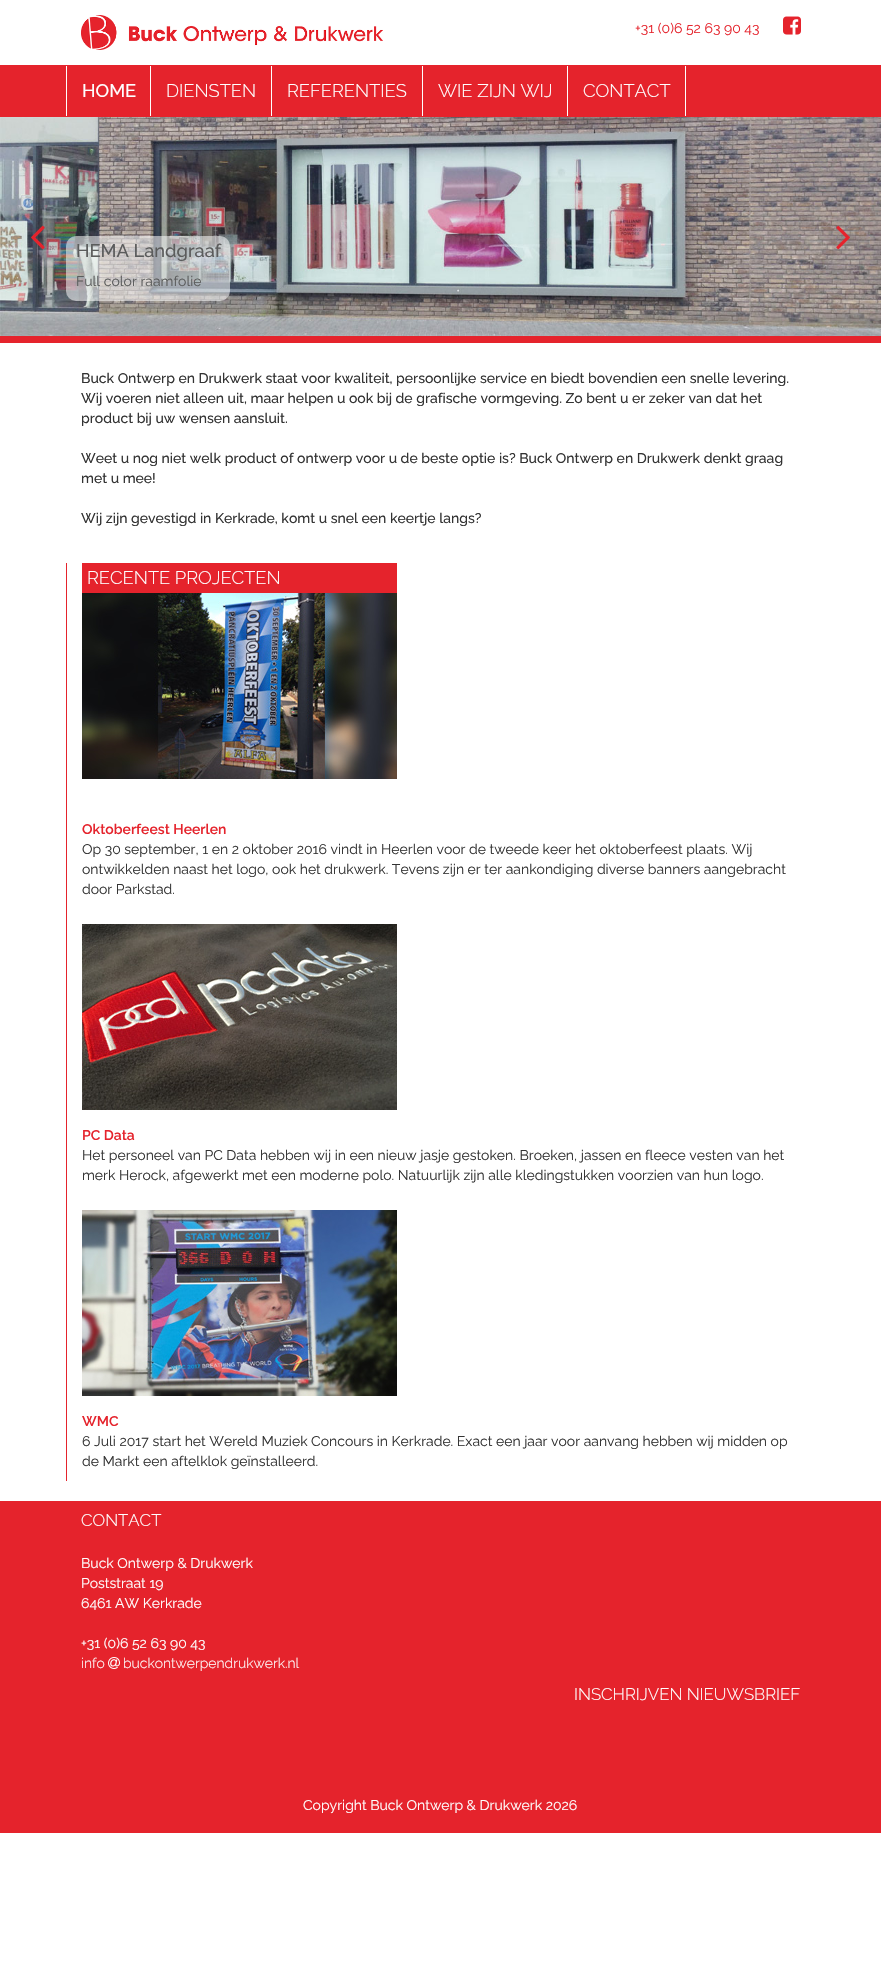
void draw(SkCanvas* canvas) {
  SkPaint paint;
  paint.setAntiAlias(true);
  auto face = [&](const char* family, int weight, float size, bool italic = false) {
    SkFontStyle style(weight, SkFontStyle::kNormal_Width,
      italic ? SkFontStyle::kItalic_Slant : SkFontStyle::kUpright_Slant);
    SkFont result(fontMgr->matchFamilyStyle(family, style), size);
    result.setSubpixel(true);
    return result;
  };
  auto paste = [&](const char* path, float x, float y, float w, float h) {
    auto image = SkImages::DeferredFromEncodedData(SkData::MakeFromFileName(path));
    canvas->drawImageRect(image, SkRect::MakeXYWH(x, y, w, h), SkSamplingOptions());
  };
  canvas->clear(0xffffffff);
  paste("img/1.png", 81, 15, 302, 35);
  paste("img/2.png", 783, 16, 18, 19);
  {
    const struct { float x, y, w, h; SkColor color; } items[] = {
      {0, 65, 881, 52, 0xffe5232c},
      {66, 66, 1, 50, 0xffffffff},
      {150, 66, 1, 50, 0xffffffff},
      {271, 66, 1, 50, 0xffffffff},
      {422, 66, 1, 50, 0xffffffff},
      {685, 66, 1, 50, 0xffffffff},
      {567, 66, 1, 50, 0xffffffff},
      {0, 336, 881, 7, 0xffe5232c},
    };
    for (auto [x, y, w, h, color] : items) {
      paint.setColor(color);
      canvas->drawRect(SkRect::MakeXYWH(x, y, w, h), paint);
    }
  }
  paste("img/3.png", 0, 117, 881, 219);
  paste("img/4.png", 31, 225, 14, 25);
  paste("img/5.png", 836, 225, 14, 25);
  paint.setColor(0x87ffffff);
  canvas->drawRoundRect(SkRect::MakeXYWH(66, 236, 164, 65), 10, 10, paint);
  paint.setColor(0xffe5232c);
  canvas->drawRect(SkRect::MakeXYWH(66, 563, 1, 918), paint);
  canvas->drawRect(SkRect::MakeXYWH(82, 563, 315, 30), paint);
  paste("img/6.png", 82, 593, 315, 186);
  paste("img/7.png", 82, 924, 315, 186);
  paste("img/8.png", 82, 1210, 315, 186);
  canvas->drawRect(SkRect::MakeXYWH(0, 1501, 881, 332), paint);
  paste("img/9.png", 108, 1657, 12, 12);
  auto f0 = face("Raleway", 400, 14);
  canvas->drawString("+31 (0)6 52 63 90 43", 635, 33, f0, paint);
  auto f1 = face("Raleway", 500, 18.25f);
  paint.setColor(0xffffffff);
  canvas->drawString("HOME", 82, 97, f1, paint);
  auto f2 = face("Raleway", 300, 18.25f);
  {
    const struct { const char* s; float x, y; } items[] = {
      {"DIENSTEN", 166, 97},
      {"REFERENTIES", 287, 97},
      {"WIE ZIJN WIJ", 438, 97},
      {"CONTACT", 583, 97},
    };
    for (auto [s, x, y] : items) {
      canvas->drawString(s, x, y, f2, paint);
    }
  }
  paint.setColor(0xff5b5c5c);
  canvas->drawString("HEMA Landgraaf", 76, 257, f1, paint);
  canvas->drawString("Full color raamfolie", 76, 286, f0, paint);
  auto f3 = face("Raleway", 500, 14);
  paint.setColor(0xff333333);
  {
    const struct { const char* s; float x, y; } items[] = {
      {"Buck Ontwerp en Drukwerk staat voor kwaliteit, persoonlijke service en biedt bovendien een snelle levering.", 81, 383},
      {"Wij voeren niet alleen uit, maar helpen u ook bij de grafische vormgeving. Zo bent u er zeker van dat het", 81, 403},
      {"product bij uw wensen aansluit.", 81, 423},
      {"Weet u nog niet welk product of ontwerp voor u de beste optie is? Buck Ontwerp en Drukwerk denkt graag", 81, 463},
      {"met u mee!", 81, 483},
      {"Wij zijn gevestigd in Kerkrade, komt u snel een keertje langs?", 81, 523},
    };
    for (auto [s, x, y] : items) {
      canvas->drawString(s, x, y, f3, paint);
    }
  }
  paint.setColor(0xffffffff);
  canvas->drawString("RECENTE PROJECTEN", 87, 584, f2, paint);
  auto f4 = face("Raleway", 600, 14);
  paint.setColor(0xffe5232c);
  canvas->drawString("Oktoberfeest Heerlen", 82, 834, f4, paint);
  paint.setColor(0xff333333);
  {
    const struct { const char* s; float x, y; } items[] = {
      {"Op 30 september, 1 en 2 oktober 2016 vindt in Heerlen voor de tweede keer het oktoberfeest plaats. Wij", 82, 854},
      {"ontwikkelden naast het logo, ook het drukwerk. Tevens zijn er ter aankondiging diverse banners aangebracht", 82, 874},
      {"door Parkstad.", 82, 894},
    };
    for (auto [s, x, y] : items) {
      canvas->drawString(s, x, y, f0, paint);
    }
  }
  paint.setColor(0xffe5232c);
  canvas->drawString("PC Data", 82, 1140, f4, paint);
  paint.setColor(0xff333333);
  canvas->drawString("Het personeel van PC Data hebben wij in een nieuw jasje gestoken. Broeken, jassen en fleece vesten van het", 82, 1160, f0, paint);
  canvas->drawString("merk Herock, afgewerkt met een moderne polo. Natuurlijk zijn alle kledingstukken voorzien van hun logo.", 82, 1180, f0, paint);
  paint.setColor(0xffe5232c);
  canvas->drawString("WMC", 82, 1426, f4, paint);
  paint.setColor(0xff333333);
  canvas->drawString("6 Juli 2017 start het Wereld Muziek Concours in Kerkrade. Exact een jaar voor aanvang hebben wij midden op", 82, 1446, f0, paint);
  canvas->drawString("de Markt een aftelklok geïnstalleerd.", 82, 1466, f0, paint);
  auto f5 = face("Raleway", 300, 16.75f);
  paint.setColor(0xffffffff);
  canvas->drawString("CONTACT", 81, 1526, f5, paint);
  {
    const struct { const char* s; float x, y; } items[] = {
      {"Buck Ontwerp & Drukwerk", 81, 1568},
      {"Poststraat 19", 81, 1588},
      {"6461 AW Kerkrade", 81, 1608},
      {"+31 (0)6 52 63 90 43", 81, 1648},
    };
    for (auto [s, x, y] : items) {
      canvas->drawString(s, x, y, f0, paint);
    }
  }
  auto f6 = face("Raleway", 300, 14);
  canvas->drawString("info", 81, 1668, f6, paint);
  canvas->drawString("buckontwerpendrukwerk.nl", 123, 1668, f6, paint);
  canvas->drawString("INSCHRIJVEN NIEUWSBRIEF", 574, 1700, f5, paint);
  canvas->drawString("Copyright Buck Ontwerp & Drukwerk 2026", 303, 1810, f0, paint);
}
